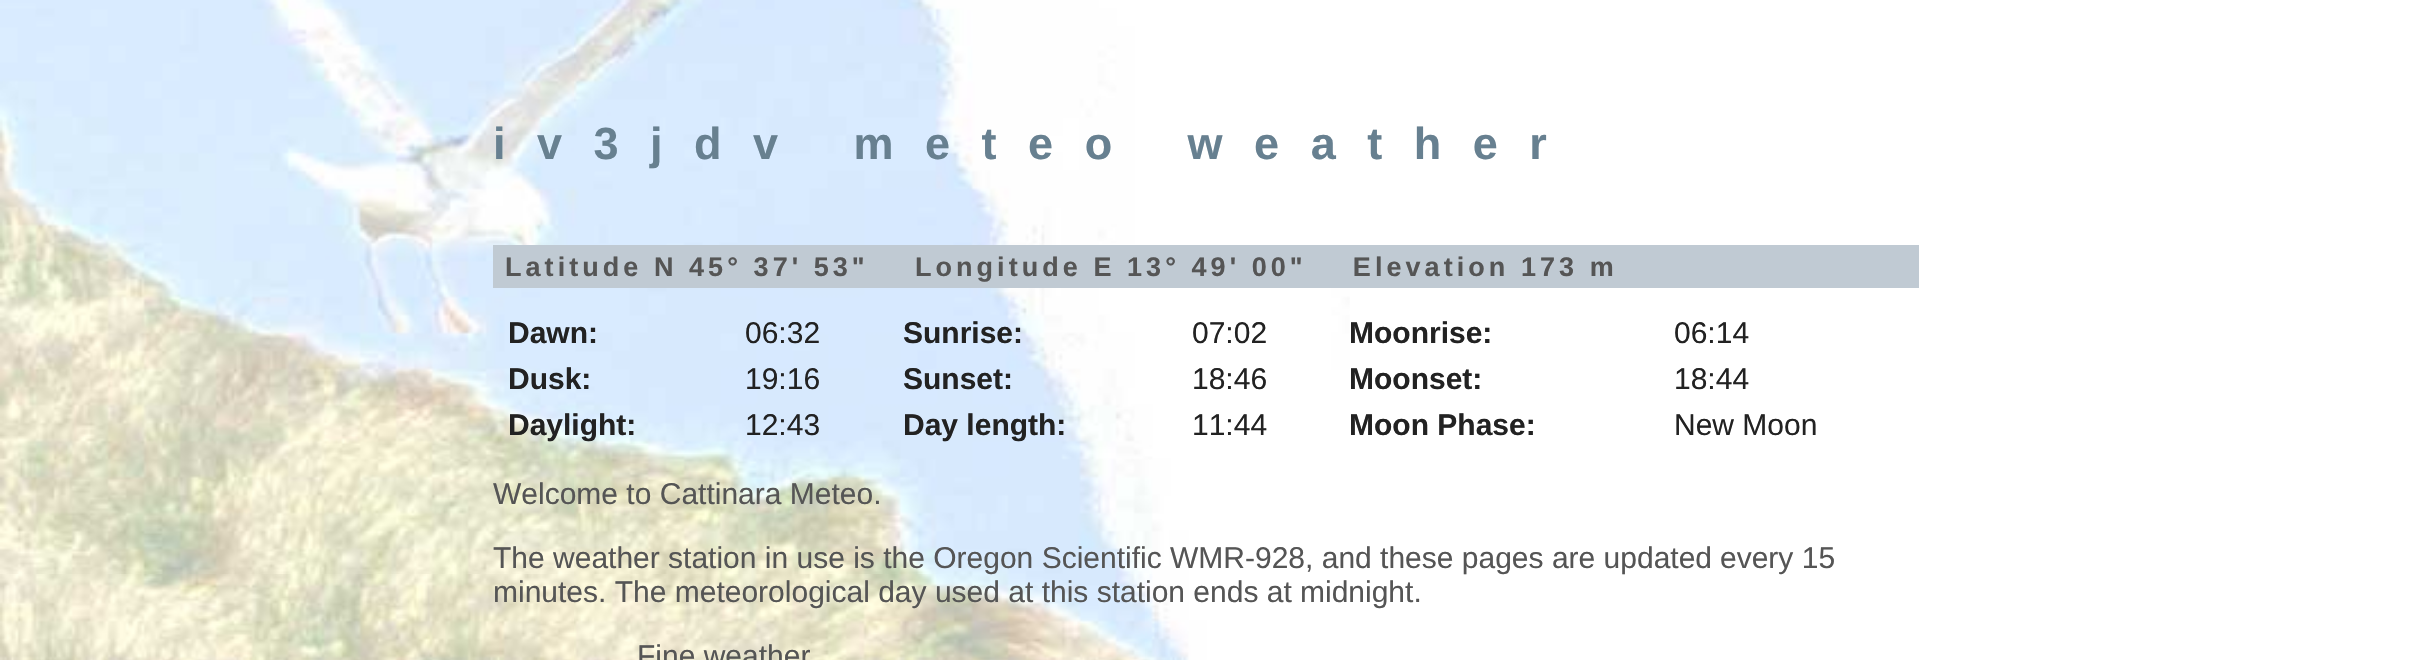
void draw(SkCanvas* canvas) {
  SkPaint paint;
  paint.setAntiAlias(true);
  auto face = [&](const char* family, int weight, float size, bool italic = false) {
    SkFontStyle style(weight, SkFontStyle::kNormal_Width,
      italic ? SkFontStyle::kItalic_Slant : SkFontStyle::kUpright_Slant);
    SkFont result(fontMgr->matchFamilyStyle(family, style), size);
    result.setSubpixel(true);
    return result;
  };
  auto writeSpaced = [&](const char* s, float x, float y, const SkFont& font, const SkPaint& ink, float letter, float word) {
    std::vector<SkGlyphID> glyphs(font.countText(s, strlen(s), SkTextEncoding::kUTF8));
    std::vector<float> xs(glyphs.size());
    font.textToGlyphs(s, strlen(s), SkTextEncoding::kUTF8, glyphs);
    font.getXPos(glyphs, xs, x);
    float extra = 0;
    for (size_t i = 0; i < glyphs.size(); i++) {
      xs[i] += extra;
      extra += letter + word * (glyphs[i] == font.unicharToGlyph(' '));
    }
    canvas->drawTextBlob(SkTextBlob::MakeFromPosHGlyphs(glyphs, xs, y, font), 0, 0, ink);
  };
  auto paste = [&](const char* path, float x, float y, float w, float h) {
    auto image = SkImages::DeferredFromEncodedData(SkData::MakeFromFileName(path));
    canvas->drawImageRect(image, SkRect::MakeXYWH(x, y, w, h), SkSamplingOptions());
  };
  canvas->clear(0xffffffff);
  paste("img/1.png", 0, 0, 1350, 660);
  paint.setColor(0xffc0cad3);
  canvas->drawRect(SkRect::MakeXYWH(493, 245, 1426, 43), paint);
  auto f0 = face("Liberation Sans", 700, 45);
  paint.setColor(0xff678090);
  writeSpaced("iv3jdv meteo weather", 493, 159, f0, paint, 31.5f, 0);
  auto f1 = face("Liberation Sans", 700, 27);
  paint.setColor(0xff555555);
  writeSpaced("Latitude N 45° 37' 53\"    Longitude E 13° 49' 00\"    Elevation 173 m", 505, 276, f1, paint, 4.05f, 0);
  auto f2 = face("Liberation Sans", 700, 30);
  paint.setColor(0xff222222);
  canvas->drawString("Dawn:", 508, 343, f2, paint);
  auto f3 = face("Liberation Sans", 400, 30);
  canvas->drawString("06:32", 745, 343, f3, paint);
  canvas->drawString("Sunrise:", 903, 343, f2, paint);
  canvas->drawString("07:02", 1192, 343, f3, paint);
  canvas->drawString("Moonrise:", 1349, 343, f2, paint);
  canvas->drawString("06:14", 1674, 343, f3, paint);
  canvas->drawString("Dusk:", 508, 389, f2, paint);
  canvas->drawString("19:16", 745, 389, f3, paint);
  canvas->drawString("Sunset:", 903, 389, f2, paint);
  canvas->drawString("18:46", 1192, 389, f3, paint);
  canvas->drawString("Moonset:", 1349, 389, f2, paint);
  canvas->drawString("18:44", 1674, 389, f3, paint);
  canvas->drawString("Daylight:", 508, 435, f2, paint);
  canvas->drawString("12:43", 745, 435, f3, paint);
  canvas->drawString("Day length:", 903, 435, f2, paint);
  canvas->drawString("11:44", 1192, 435, f3, paint);
  canvas->drawString("Moon Phase:", 1349, 435, f2, paint);
  canvas->drawString("New Moon", 1674, 435, f3, paint);
  paint.setColor(0xff555555);
  {
    const struct { const char* s; float x, y; } items[] = {
      {"Welcome to Cattinara Meteo.", 493, 504},
      {"The weather station in use is the Oregon Scientific WMR-928, and these pages are updated", 493, 568},
      {"every 15", 1720, 568},
      {"minutes. The meteorological day used at this station ends at", 493, 602},
      {"midnight.", 1300, 602},
      {"Fine weather", 637, 666},
    };
    for (auto [s, x, y] : items) {
      canvas->drawString(s, x, y, f3, paint);
    }
  }
}
